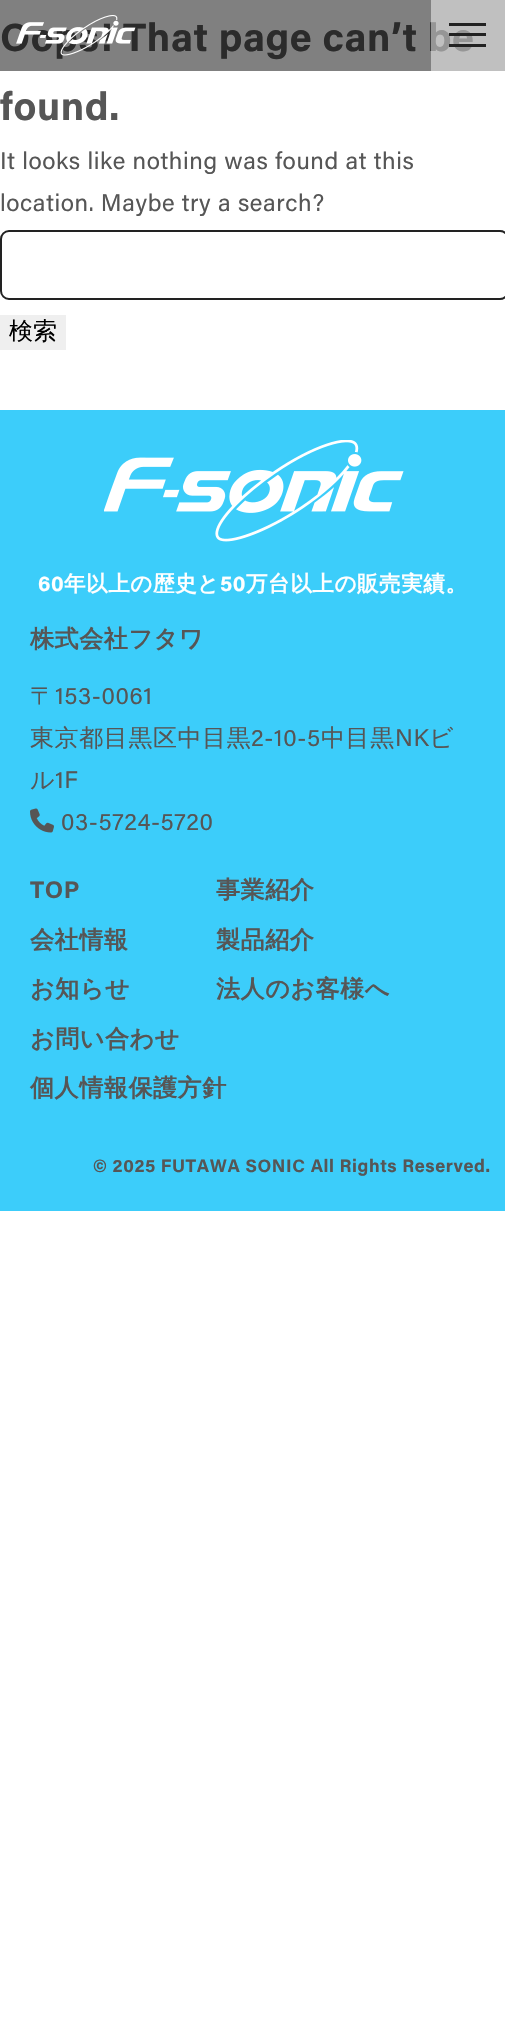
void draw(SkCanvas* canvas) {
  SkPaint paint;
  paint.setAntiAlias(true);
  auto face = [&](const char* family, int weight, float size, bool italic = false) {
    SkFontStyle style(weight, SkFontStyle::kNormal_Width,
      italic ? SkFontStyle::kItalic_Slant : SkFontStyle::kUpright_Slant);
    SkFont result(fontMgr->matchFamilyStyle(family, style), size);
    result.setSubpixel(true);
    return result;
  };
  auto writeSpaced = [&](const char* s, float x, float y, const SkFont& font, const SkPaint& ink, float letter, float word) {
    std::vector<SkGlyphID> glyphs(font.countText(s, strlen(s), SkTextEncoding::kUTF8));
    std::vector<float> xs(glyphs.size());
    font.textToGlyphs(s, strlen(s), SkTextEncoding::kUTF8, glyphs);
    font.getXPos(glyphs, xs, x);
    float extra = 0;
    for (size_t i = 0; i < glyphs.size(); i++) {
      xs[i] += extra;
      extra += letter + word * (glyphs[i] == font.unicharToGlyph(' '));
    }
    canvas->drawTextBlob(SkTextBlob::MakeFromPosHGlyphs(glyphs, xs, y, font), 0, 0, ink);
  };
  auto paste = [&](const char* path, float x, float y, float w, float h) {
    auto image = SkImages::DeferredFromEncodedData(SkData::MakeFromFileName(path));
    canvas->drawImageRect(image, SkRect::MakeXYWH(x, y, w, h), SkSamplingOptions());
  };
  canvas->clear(0xffffffff);
  paint.setColor(0xff808080);
  canvas->drawRect(SkRect::MakeXYWH(0, 0, 505, 71), paint);
  paint.setStroke(true);
  paint.setStrokeWidth(2);
  paint.setColor(0xff222222);
  canvas->drawRoundRect(SkRect::MakeXYWH(1, 231, 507, 68), 8, 8, paint);
  paint.setStroke(false);
  paint.setColor(0xffefefef);
  canvas->drawRect(SkRect::MakeXYWH(0, 315, 66, 35), paint);
  paint.setColor(0xff3ccdfa);
  canvas->drawRect(SkRect::MakeXYWH(0, 410, 505, 801), paint);
  paste("img/2.png", 104, 440, 300, 102);
  paste("img/3.png", 30, 808, 24, 25);
  auto f0 = face("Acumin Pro", 700, 39.5f);
  paint.setColor(0xff2b2b2b);
  writeSpaced("Oops! That page can’t be", 0, 51, f0, paint, 0.6f, 0);
  {
    const struct { float x, y, w, h; SkColor color; } items[] = {
      {431, 0, 74, 71, 0x80ffffff},
      {449, 44, 37, 3, 0xff222222},
      {449, 23, 37, 3, 0xff222222},
      {449, 33, 37, 3, 0xff222222},
    };
    for (auto [x, y, w, h, color] : items) {
      paint.setColor(color);
      canvas->drawRect(SkRect::MakeXYWH(x, y, w, h), paint);
    }
  }
  paste("img/1.png", 16, 15, 120, 41);
  paint.setColor(0xff565656);
  writeSpaced("found.", 0, 120, f0, paint, 0.6f, 0);
  auto f1 = face("Acumin Pro", 400, 24);
  writeSpaced("It looks like nothing was found at this", 0, 169, f1, paint, 0.6f, 0);
  writeSpaced("location. Maybe try a search?", 0, 211, f1, paint, 0.6f, 0);
  auto f2 = face("WenQuanYi Zen Hei", 500, 24);
  paint.setColor(0xff000000);
  canvas->drawString("検索", 9, 339, f2, paint);
  auto f3 = face("Acumin Pro", 700, 21.5f);
  paint.setColor(0xffffffff);
  writeSpaced("60", 38, 591, f3, paint, 0.6f, 0);
  auto f4 = face("WenQuanYi Zen Hei", 700, 21.5f);
  writeSpaced("年以上の歴史と", 64, 591, f4, paint, 0.6f, 0);
  writeSpaced("50", 220, 591, f3, paint, 0.6f, 0);
  writeSpaced("万台以上の販売実績。", 246, 591, f4, paint, 0.6f, 0);
  auto f5 = face("WenQuanYi Zen Hei", 700, 24);
  paint.setColor(0xff565656);
  writeSpaced("株式会社フタワ", 30, 647, f5, paint, 0.6f, 0);
  writeSpaced("〒", 30, 704, f2, paint, 0.6f, 0);
  writeSpaced("153-0061", 55, 704, f1, paint, 0.6f, 0);
  writeSpaced("東京都目黒区中目黒", 30, 746, f2, paint, 0.6f, 0);
  writeSpaced("2-10-5", 251, 746, f1, paint, 0.6f, 0);
  writeSpaced("中目黒", 321, 746, f2, paint, 0.6f, 0);
  writeSpaced("NK", 395, 746, f1, paint, 0.6f, 0);
  writeSpaced("ビ", 429, 746, f2, paint, 0.6f, 0);
  writeSpaced("ル", 30, 788, f2, paint, 0.6f, 0);
  writeSpaced("1F", 55, 788, f1, paint, 0.6f, 0);
  writeSpaced("03-5724-5720", 61, 830, f1, paint, 0.6f, 0);
  auto f6 = face("Acumin Pro", 700, 24);
  writeSpaced("TOP", 30, 898, f6, paint, 0.6f, 0);
  {
    const struct { const char* s; float x, y; } items[] = {
      {"会社情報", 30, 948},
      {"お知らせ", 30, 997},
      {"事業紹介", 216, 898},
      {"製品紹介", 216, 948},
      {"法人のお客様へ", 216, 997},
      {"お問い合わせ", 30, 1047},
      {"個人情報保護方針", 30, 1096},
    };
    for (auto [s, x, y] : items) {
      writeSpaced(s, x, y, f5, paint, 0.6f, 0);
    }
  }
  auto f7 = face("Acumin Pro", 700, 18);
  writeSpaced("© 2025 FUTAWA SONIC All Rights Reserved.", 93, 1172, f7, paint, 0.6f, 0);
}
